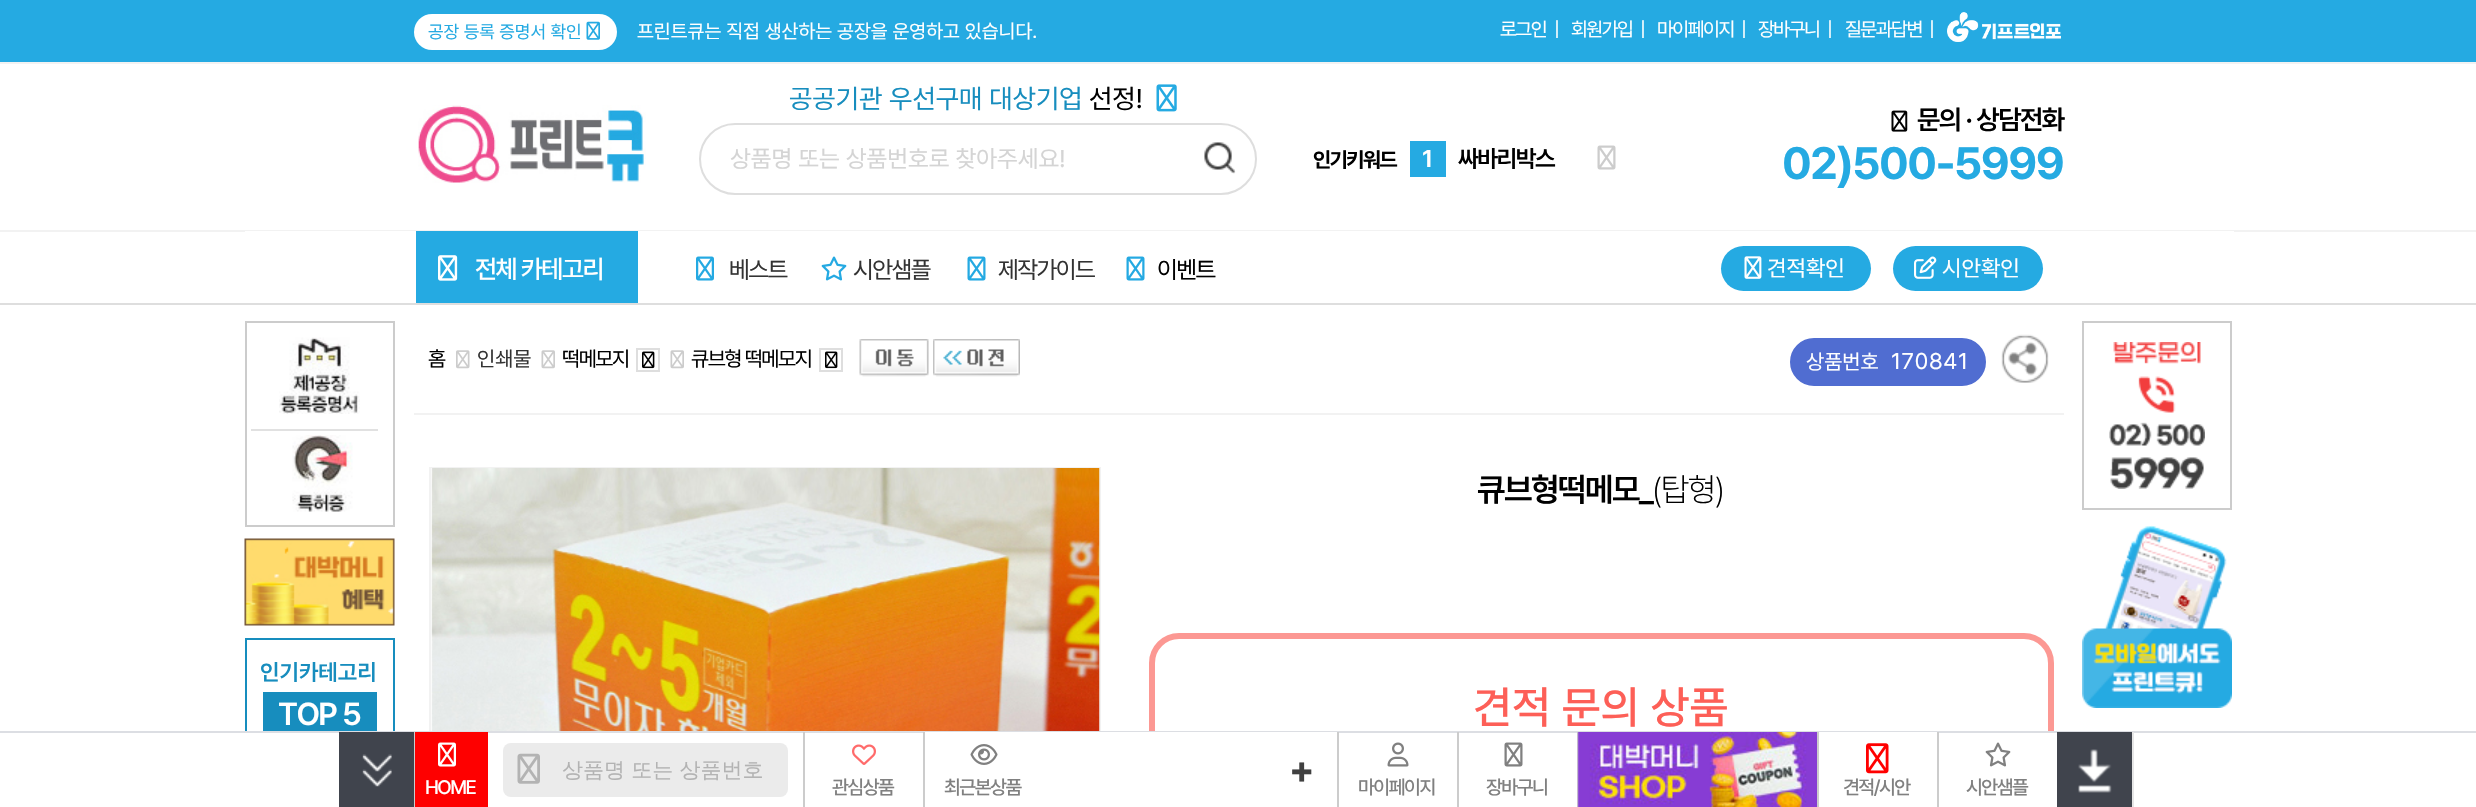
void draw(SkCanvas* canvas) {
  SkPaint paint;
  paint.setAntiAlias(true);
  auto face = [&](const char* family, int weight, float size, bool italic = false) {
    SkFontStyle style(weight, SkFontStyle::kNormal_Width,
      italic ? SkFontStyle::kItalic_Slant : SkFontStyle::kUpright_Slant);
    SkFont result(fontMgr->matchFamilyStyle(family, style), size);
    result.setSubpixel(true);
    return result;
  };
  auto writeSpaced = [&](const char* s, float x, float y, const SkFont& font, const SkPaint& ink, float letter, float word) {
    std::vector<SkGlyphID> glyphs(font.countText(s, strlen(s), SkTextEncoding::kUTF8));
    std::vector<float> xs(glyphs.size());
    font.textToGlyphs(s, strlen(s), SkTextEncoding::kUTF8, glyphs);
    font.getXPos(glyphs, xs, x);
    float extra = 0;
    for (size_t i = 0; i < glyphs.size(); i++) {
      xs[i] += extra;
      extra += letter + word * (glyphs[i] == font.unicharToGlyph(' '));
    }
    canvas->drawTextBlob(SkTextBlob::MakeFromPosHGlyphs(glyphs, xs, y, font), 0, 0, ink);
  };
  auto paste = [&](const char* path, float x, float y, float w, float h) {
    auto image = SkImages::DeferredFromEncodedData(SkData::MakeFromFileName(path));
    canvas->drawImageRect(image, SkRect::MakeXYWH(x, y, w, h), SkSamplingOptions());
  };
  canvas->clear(0xffffffff);
  paint.setColor(0xff25aae2);
  canvas->drawRect(SkRect::MakeXYWH(0, 0, 2476, 62), paint);
  paint.setColor(0xfff2f2f2);
  canvas->drawRect(SkRect::MakeXYWH(0, 62, 2476, 2), paint);
  paint.setColor(0xffffffff);
  canvas->drawRoundRect(SkRect::MakeXYWH(414, 14, 203, 36), 18, 18, paint);
  paste("img/1.png", 586, 21, 14, 19);
  paste("img/2.png", 1947, 12, 114, 30);
  paste("img/3.png", 418, 105, 228, 78);
  paste("img/4.png", 1156, 84, 21, 28);
  paint.setStroke(true);
  paint.setStrokeWidth(2);
  paint.setColor(0xffdedede);
  canvas->drawRoundRect(SkRect::MakeXYWH(700, 124, 556, 70), 35, 35, paint);
  paste("img/5.png", 1204, 142, 32, 32);
  paint.setStroke(false);
  paint.setColor(0xff25aae2);
  canvas->drawRect(SkRect::MakeXYWH(1410, 141, 36, 36), paint);
  paste("img/6.png", 1597, 145, 19, 25);
  paste("img/7.png", 1891, 110, 17, 22);
  {
    const struct { float x, y, w, h; SkColor color; } items[] = {
      {0, 230, 2476, 2, 0xfff2f2f2},
      {0, 303, 2476, 2, 0xffdedede},
      {245, 231, 1989, 1, 0xffffffff},
      {416, 231, 222, 72, 0xff25aae2},
    };
    for (auto [x, y, w, h, color] : items) {
      paint.setColor(color);
      canvas->drawRect(SkRect::MakeXYWH(x, y, w, h), paint);
    }
  }
  paste("img/8.png", 438, 255, 20, 26);
  paste("img/9.png", 696, 256, 18, 25);
  paste("img/10.png", 821, 256, 26, 25);
  paste("img/11.png", 967, 256, 19, 25);
  paste("img/11.png", 1126, 256, 19, 25);
  canvas->drawRoundRect(SkRect::MakeXYWH(1721, 246, 150, 45), 22.5f, 22.5f, paint);
  paste("img/12.png", 1744, 256, 18, 23);
  canvas->drawRoundRect(SkRect::MakeXYWH(1893, 246, 150, 45), 22.5f, 22.5f, paint);
  paste("img/13.png", 1914, 256, 23, 23);
  paint.setStroke(true);
  paint.setColor(0xffcccccc);
  canvas->drawRect(SkRect::MakeXYWH(246, 322, 148, 204), paint);
  paste("img/14.png", 279, 337, 81, 77);
  paint.setStroke(false);
  paint.setColor(0xffe1e1e1);
  canvas->drawRect(SkRect::MakeXYWH(251, 429, 127, 2), paint);
  paste("img/15.png", 292, 435, 61, 77);
  paste("img/16.png", 244, 538, 151, 88);
  paint.setStroke(true);
  paint.setColor(0xff178dbe);
  canvas->drawRect(SkRect::MakeXYWH(246, 639, 148, 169), paint);
  paint.setStroke(false);
  canvas->drawRect(SkRect::MakeXYWH(263, 692, 114, 39), paint);
  paint.setStroke(true);
  paint.setColor(0xffcccccc);
  canvas->drawRect(SkRect::MakeXYWH(2083, 322, 148, 187), paint);
  paste("img/17.png", 2109, 342, 96, 147);
  paste("img/18.png", 2082, 525, 150, 183);
  paste("img/19.png", 456, 350, 14, 19);
  paste("img/20.png", 541, 350, 14, 19);
  paint.setColor(0xffdedede);
  canvas->drawRect(SkRect::MakeXYWH(637, 349, 22, 22), paint);
  paste("img/21.png", 642, 351, 13, 18);
  paste("img/20.png", 670, 350, 14, 19);
  canvas->drawRect(SkRect::MakeXYWH(820, 349, 22, 22), paint);
  paste("img/21.png", 825, 351, 13, 18);
  paste("img/22.png", 859, 339, 70, 38);
  paste("img/23.png", 933, 339, 87, 38);
  paint.setStroke(false);
  paint.setColor(0xff506dd1);
  canvas->drawRoundRect(SkRect::MakeXYWH(1791, 339, 194, 46), 23, 23, paint);
  paint.setStroke(true);
  canvas->drawRoundRect(SkRect::MakeXYWH(1791, 339, 194, 46), 23, 23, paint);
  paste("img/24.png", 2001, 334, 48, 49);
  paint.setStroke(false);
  paint.setColor(0xfff2f2f2);
  canvas->drawRect(SkRect::MakeXYWH(414, 413, 1650, 2), paint);
  paint.setStroke(true);
  canvas->drawRect(SkRect::MakeXYWH(430, 468, 670, 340), paint);
  paste("img/25.png", 431, 468, 669, 263);
  paint.setStrokeWidth(6);
  paint.setColor(0xfffc9893);
  canvas->drawRoundRect(SkRect::MakeXYWH(1152, 636, 899, 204), 27, 27, paint);
  paint.setStroke(false);
  {
    const struct { float x, y, w, h; SkColor color; } items[] = {
      {245, 733, 1809, 74, 0xffffffff},
      {0, 731, 2476, 2, 0xffdcdee3},
      {339, 732, 75, 75, 0xff40444d},
    };
    for (auto [x, y, w, h, color] : items) {
      paint.setColor(color);
      canvas->drawRect(SkRect::MakeXYWH(x, y, w, h), paint);
    }
  }
  paste("img/26.png", 362, 754, 30, 33);
  paint.setColor(0xfffe0000);
  canvas->drawRect(SkRect::MakeXYWH(415, 732, 73, 75), paint);
  paint.setColor(0xffcccccc);
  canvas->drawRect(SkRect::MakeXYWH(414, 732, 1, 75), paint);
  paste("img/27.png", 438, 742, 18, 25);
  paint.setColor(0xffebebeb);
  canvas->drawRoundRect(SkRect::MakeXYWH(503, 743, 285, 54), 8, 8, paint);
  paste("img/28.png", 517, 753, 23, 31);
  paint.setColor(0xffcccccc);
  canvas->drawRect(SkRect::MakeXYWH(803, 732, 2, 75), paint);
  paste("img/29.png", 852, 744, 24, 21);
  paint.setColor(0xffffffff);
  canvas->drawRect(SkRect::MakeXYWH(925, 732, 412, 1), paint);
  paint.setColor(0xffcccccc);
  canvas->drawRect(SkRect::MakeXYWH(923, 732, 2, 75), paint);
  paste("img/30.png", 970, 744, 28, 21);
  canvas->drawRect(SkRect::MakeXYWH(1337, 732, 2, 75), paint);
  paste("img/31.png", 1387, 742, 22, 25);
  canvas->drawRect(SkRect::MakeXYWH(1457, 732, 2, 75), paint);
  paste("img/32.png", 1504, 742, 19, 25);
  canvas->drawRect(SkRect::MakeXYWH(1577, 732, 2, 75), paint);
  paste("img/33.png", 1577, 732, 240, 75);
  paint.setColor(0xffffffff);
  canvas->drawRect(SkRect::MakeXYWH(1819, 732, 118, 1), paint);
  paint.setColor(0xffcccccc);
  canvas->drawRect(SkRect::MakeXYWH(1817, 732, 2, 75), paint);
  paste("img/34.png", 1866, 743, 23, 31);
  canvas->drawRect(SkRect::MakeXYWH(1937, 732, 2, 75), paint);
  paste("img/35.png", 1985, 742, 26, 25);
  paint.setColor(0xff40444d);
  canvas->drawRect(SkRect::MakeXYWH(2057, 732, 75, 75), paint);
  paint.setColor(0xffe6e6e6);
  canvas->drawRect(SkRect::MakeXYWH(2132, 732, 2, 75), paint);
  paste("img/36.png", 2078, 749, 34, 44);
  auto f0 = face("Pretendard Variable", 400, 18);
  paint.setColor(0xff25aae2);
  canvas->drawString("공장 등록 증명서 확인", 428, 38, f0, paint);
  auto f1 = face("Pretendard Variable", 400, 19.5f);
  paint.setColor(0xffffffff);
  canvas->drawString("프린트큐는 직접 생산하는 공장을 운영하고 있습니다.", 637, 38, f1, paint);
  {
    const struct { const char* s; float x, y; } items[] = {
      {"로그인", 1500, 36},
      {"|", 1554, 36},
      {"회원가입", 1571, 36},
      {"|", 1640, 36},
      {"마이페이지", 1657, 36},
      {"|", 1741, 36},
      {"장바구니", 1758, 36},
    };
    for (auto [s, x, y] : items) {
      writeSpaced(s, x, y, f1, paint, -1.5f, 0);
    }
  }
  canvas->drawString("|", 1827, 36, f1, paint);
  writeSpaced("질문과답변", 1845, 36, f1, paint, -1.5f, 0);
  writeSpaced("|", 1929, 36, f1, paint, -1.5f, 0);
  auto f2 = face("Pretendard Variable", 400, 27);
  paint.setColor(0xff178dbe);
  canvas->drawString("공공기관 우선구매 대상기업", 789, 108, f2, paint);
  paint.setColor(0xff000000);
  canvas->drawString("선정!", 1089, 108, f2, paint);
  auto f3 = face("Pretendard Variable", 400, 24);
  paint.setColor(0xffd4d4d4);
  canvas->drawString("상품명 또는 상품번호로 찾아주세요!", 730, 167, f3, paint);
  auto f4 = face("Pretendard Variable", 700, 21);
  paint.setColor(0xff000000);
  writeSpaced("인기키워드", 1313, 167, f4, paint, -1.5f, 0);
  auto f5 = face("Pretendard Variable", 600, 24);
  paint.setColor(0xffffffff);
  writeSpaced("1", 1422, 167, f5, paint, -1.5f, 0);
  paint.setColor(0xff000000);
  writeSpaced("싸바리박스", 1458, 167, f5, paint, -1.5f, 0);
  auto f6 = face("Pretendard Variable", 600, 27);
  writeSpaced("문의 · 상담전화", 1917, 129, f6, paint, -1.5f, 0);
  auto f7 = face("Pretendard Variable", 700, 45);
  paint.setColor(0xff25aae2);
  writeSpaced("02)500-5999", 1782, 179, f7, paint, -1.5f, 0);
  auto f8 = face("Pretendard Variable", 500, 25.5f);
  paint.setColor(0xffffffff);
  writeSpaced("전체 카테고리", 475, 278, f8, paint, -1.5f, 0);
  paint.setColor(0xff333333);
  {
    const struct { const char* s; float x, y; } items[] = {
      {"베스트", 729, 278},
      {"시안샘플", 853, 278},
      {"제작가이드", 998, 278},
    };
    for (auto [s, x, y] : items) {
      writeSpaced(s, x, y, f3, paint, -1.5f, 0);
    }
  }
  paint.setColor(0xff000000);
  writeSpaced("이벤트", 1157, 278, f3, paint, -1.5f, 0);
  auto f9 = face("Pretendard Variable", 400, 22.5f);
  paint.setColor(0xffffffff);
  canvas->drawString("견적확인", 1767, 276, f9, paint);
  canvas->drawString("시안확인", 1942, 276, f9, paint);
  auto f10 = face("Pretendard Variable", 600, 22.5f);
  paint.setColor(0xff178dbe);
  canvas->drawString("인기카테고리", 260, 680, f10, paint);
  auto f11 = face("Pretendard Variable", 600, 31.5f);
  paint.setColor(0xffffffff);
  writeSpaced("TOP 5", 278, 725, f11, paint, -1.5f, 0);
  auto f12 = face("Pretendard Variable", 400, 21);
  paint.setColor(0xff000000);
  canvas->drawString("홈", 428, 366, f12, paint);
  paint.setColor(0xff333333);
  canvas->drawString("인쇄물", 477, 366, f12, paint);
  paint.setColor(0xff000000);
  writeSpaced("떡메모지", 562, 366, f12, paint, -1.5f, 0);
  writeSpaced("큐브형 떡메모지", 691, 366, f12, paint, -1.5f, 0);
  paint.setColor(0xffffffff);
  canvas->drawString("상품번호", 1806, 369, f12, paint);
  writeSpaced("170841", 1891, 369, f9, paint, 0.75f, 0);
  auto f13 = face("Pretendard Variable", 600, 33);
  paint.setColor(0xff000000);
  writeSpaced("큐브형떡메모_", 1477, 501, f13, paint, -1.5f, 0);
  auto f14 = face("Pretendard Variable", 200, 33);
  writeSpaced("(탑형)", 1652, 501, f14, paint, -1.5f, 0);
  auto f15 = face("Pretendard Variable", 500, 45);
  paint.setColor(0xfffd5f57);
  canvas->drawString("견적 문의 상품", 1473, 723, f15, paint);
  auto f16 = face("Pretendard Variable", 500, 19.5f);
  paint.setColor(0xffffffff);
  writeSpaced("HOME", 425, 794, f16, paint, -1.5f, 0);
  auto f17 = face("WenQuanYi Zen Hei", 500, 21);
  paint.setColor(0xffb3b3b3);
  canvas->drawString("상품명 또는 상품번호", 562, 777, f17, paint);
  paint.setColor(0xff808080);
  writeSpaced("관심상품", 832, 794, f16, paint, -1.5f, 0);
  auto f18 = face("Pretendard Variable", 700, 39);
  paint.setColor(0xff404040);
  writeSpaced("+", 1289, 783, f18, paint, -1.5f, 0);
  paint.setColor(0xff808080);
  {
    const struct { const char* s; float x, y; } items[] = {
      {"최근본상품", 944, 794},
      {"마이페이지", 1358, 794},
      {"장바구니", 1486, 794},
      {"견적/시안", 1843, 794},
      {"시안샘플", 1966, 794},
    };
    for (auto [s, x, y] : items) {
      writeSpaced(s, x, y, f16, paint, -1.5f, 0);
    }
  }
}
